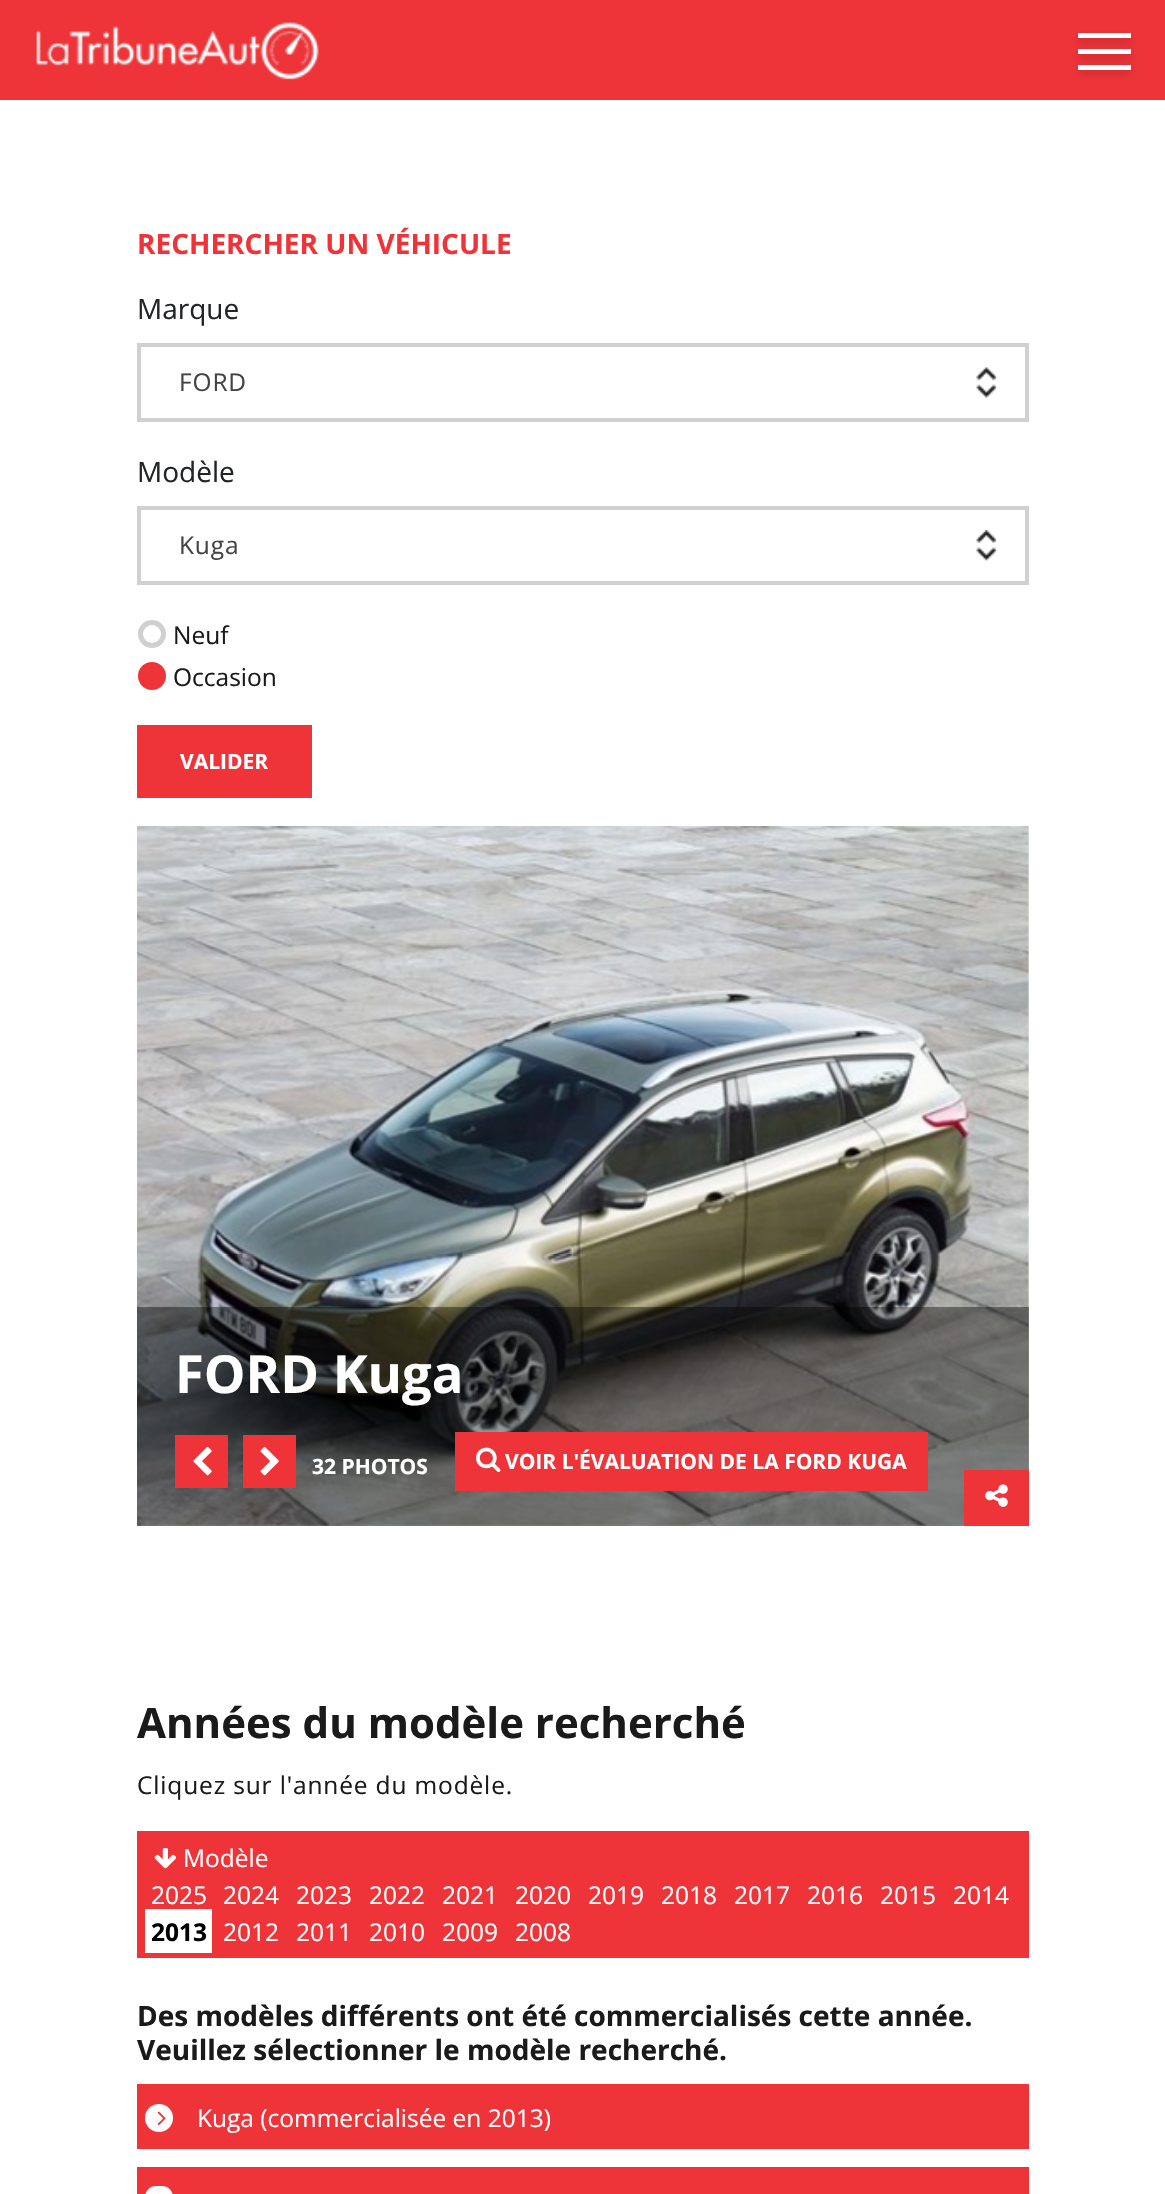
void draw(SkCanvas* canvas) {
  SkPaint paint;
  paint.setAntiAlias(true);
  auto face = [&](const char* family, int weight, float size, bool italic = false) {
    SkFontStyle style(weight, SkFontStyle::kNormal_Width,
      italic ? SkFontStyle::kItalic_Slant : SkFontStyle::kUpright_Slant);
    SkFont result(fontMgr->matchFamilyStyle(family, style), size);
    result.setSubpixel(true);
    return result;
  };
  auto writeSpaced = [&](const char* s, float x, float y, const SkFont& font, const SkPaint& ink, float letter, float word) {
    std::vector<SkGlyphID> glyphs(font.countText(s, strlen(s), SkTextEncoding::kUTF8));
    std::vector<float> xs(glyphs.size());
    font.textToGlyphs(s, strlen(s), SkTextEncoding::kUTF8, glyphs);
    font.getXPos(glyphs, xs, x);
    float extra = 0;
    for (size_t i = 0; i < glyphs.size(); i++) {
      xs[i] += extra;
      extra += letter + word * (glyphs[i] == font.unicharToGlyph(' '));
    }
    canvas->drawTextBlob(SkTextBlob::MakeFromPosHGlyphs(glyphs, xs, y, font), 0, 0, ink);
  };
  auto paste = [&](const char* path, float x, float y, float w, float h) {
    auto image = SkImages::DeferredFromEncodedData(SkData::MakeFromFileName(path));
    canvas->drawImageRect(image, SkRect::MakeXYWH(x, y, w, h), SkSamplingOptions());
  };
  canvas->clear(0xffffffff);
  paint.setColor(0xffee3439);
  canvas->drawRect(SkRect::MakeXYWH(0, 0, 1165, 100), paint);
  paste("img/1.png", 36, 22, 283, 58);
  paint.setColor(0x33000000);
  paint.setMaskFilter(SkMaskFilter::MakeBlur(kNormal_SkBlurStyle, 4.5f));
  canvas->drawRect(SkRect::MakeXYWH(1078, 53, 53, 5), paint);
  paint.setMaskFilter(nullptr);
  paint.setColor(0xffffffff);
  canvas->drawRect(SkRect::MakeXYWH(1078, 49, 53, 5), paint);
  paint.setColor(0x33000000);
  paint.setMaskFilter(SkMaskFilter::MakeBlur(kNormal_SkBlurStyle, 4.5f));
  canvas->drawRect(SkRect::MakeXYWH(1078, 37, 53, 5), paint);
  paint.setMaskFilter(nullptr);
  paint.setColor(0xffffffff);
  canvas->drawRect(SkRect::MakeXYWH(1078, 33, 53, 5), paint);
  paint.setColor(0x33000000);
  paint.setMaskFilter(SkMaskFilter::MakeBlur(kNormal_SkBlurStyle, 4.5f));
  canvas->drawRect(SkRect::MakeXYWH(1078, 68, 53, 5), paint);
  paint.setMaskFilter(nullptr);
  paint.setColor(0xffffffff);
  canvas->drawRect(SkRect::MakeXYWH(1078, 65, 53, 5), paint);
  paint.setStroke(true);
  paint.setStrokeWidth(4);
  paint.setColor(0xffd0d0d0);
  canvas->drawRect(SkRect::MakeXYWH(139, 345, 888, 75), paint);
  paste("img/2.png", 976, 367, 21, 31);
  canvas->drawRect(SkRect::MakeXYWH(139, 508, 888, 75), paint);
  paste("img/3.png", 976, 530, 21, 31);
  paint.setStrokeWidth(5);
  canvas->drawCircle(152, 634, 11.5f, paint);
  paint.setStroke(false);
  paint.setColor(0xffee3439);
  canvas->drawCircle(152, 676, 11.5f, paint);
  paint.setStroke(true);
  canvas->drawCircle(152, 676, 11.5f, paint);
  paint.setStroke(false);
  canvas->drawRect(SkRect::MakeXYWH(137, 725, 175, 73), paint);
  paste("img/4.png", 137, 826, 892, 700);
  paint.setColor(0x66000000);
  canvas->drawRect(SkRect::MakeXYWH(137, 1307, 892, 219), paint);
  paint.setColor(0xffee3439);
  canvas->drawRect(SkRect::MakeXYWH(175, 1435, 53, 53), paint);
  paste("img/5.png", 193, 1447, 19, 29);
  canvas->drawRect(SkRect::MakeXYWH(243, 1435, 53, 53), paint);
  paste("img/6.png", 260, 1447, 19, 29);
  canvas->drawRect(SkRect::MakeXYWH(455, 1432, 473, 59), paint);
  paste("img/7.png", 476, 1447, 25, 25);
  canvas->drawRect(SkRect::MakeXYWH(964, 1470, 65, 56), paint);
  paste("img/8.png", 985, 1484, 23, 23);
  canvas->drawRect(SkRect::MakeXYWH(137, 1831, 892, 127), paint);
  paste("img/9.png", 154, 1848, 22, 21);
  paint.setColor(0xffffffff);
  canvas->drawRect(SkRect::MakeXYWH(145, 1909, 67, 44), paint);
  paint.setColor(0xffee3439);
  canvas->drawRect(SkRect::MakeXYWH(137, 2084, 892, 65), paint);
  paint.setColor(0xffffffff);
  canvas->drawCircle(159, 2118, 14, paint);
  paste("img/10.png", 157, 2111, 9, 15);
  paint.setColor(0xffee3439);
  canvas->drawRect(SkRect::MakeXYWH(137, 2167, 892, 27), paint);
  paint.setColor(0xffffffff);
  canvas->drawRoundRect(SkRect::MakeXYWH(145, 2186, 28, 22), 14, 14, paint);
  paint.setColor(0xfffef1f1);
  canvas->drawRect(SkRect::MakeXYWH(158, 2193, 1, 1), paint);
  auto f0 = face("Open Sans", 700, 28);
  paint.setColor(0xffee3439);
  canvas->drawString("RECHERCHER UN VÉHICULE", 137, 254, f0, paint);
  auto f1 = face("Open Sans", 400, 28);
  paint.setColor(0xff212529);
  canvas->drawString("Marque", 137, 319, f1, paint);
  auto f2 = face("Open Sans", 400, 24.5f);
  paint.setColor(0xff444444);
  writeSpaced("FORD", 179, 391, f2, paint, 0.85f, 0);
  paint.setColor(0xff212529);
  canvas->drawString("Modèle", 137, 482, f1, paint);
  paint.setColor(0xff444444);
  writeSpaced("Kuga", 179, 554, f2, paint, 0.85f, 0);
  paint.setColor(0xff1a1a1a);
  canvas->drawString("Neuf", 173, 644, f2, paint);
  canvas->drawString("Occasion", 173, 686, f2, paint);
  auto f3 = face("Open Sans", 700, 21);
  paint.setColor(0xffffffff);
  canvas->drawString("VALIDER", 180, 769, f3, paint);
  auto f4 = face("Open Sans", 700, 52.5f);
  canvas->drawString("FORD Kuga", 175, 1393, f4, paint);
  canvas->drawString("32 PHOTOS", 312, 1474, f3, paint);
  canvas->drawString("VOIR L'ÉVALUATION DE LA FORD KUGA", 505, 1469, f3, paint);
  auto f5 = face("Open Sans", 700, 42);
  paint.setColor(0xff1a1a1a);
  canvas->drawString("Années du modèle recherché", 137, 1738, f5, paint);
  writeSpaced("Cliquez sur l'année du modèle.", 137, 1794, f2, paint, 0.85f, 0);
  paint.setColor(0xffffffff);
  {
    const struct { const char* s; float x, y; } items[] = {
      {"Modèle", 183, 1867},
      {"2025", 151, 1904},
      {"2024", 223, 1904},
      {"2023", 296, 1904},
      {"2022", 369, 1904},
      {"2021", 442, 1904},
      {"2020", 515, 1904},
      {"2019", 588, 1904},
      {"2018", 661, 1904},
      {"2017", 734, 1904},
      {"2016", 807, 1904},
      {"2015", 880, 1904},
      {"2014", 953, 1904},
    };
    for (auto [s, x, y] : items) {
      canvas->drawString(s, x, y, f2, paint);
    }
  }
  auto f6 = face("Open Sans", 700, 24.5f);
  paint.setColor(0xff000000);
  canvas->drawString("2013", 151, 1941, f6, paint);
  paint.setColor(0xffffffff);
  {
    const struct { const char* s; float x, y; } items[] = {
      {"2012", 223, 1941},
      {"2011", 296, 1941},
      {"2010", 369, 1941},
      {"2009", 442, 1941},
      {"2008", 515, 1941},
    };
    for (auto [s, x, y] : items) {
      canvas->drawString(s, x, y, f2, paint);
    }
  }
  paint.setColor(0xff1a1a1a);
  canvas->drawString("Des modèles différents ont été commercialisés cette année.", 137, 2026, f0, paint);
  canvas->drawString("Veuillez sélectionner le modèle recherché.", 137, 2060, f0, paint);
  paint.setColor(0xffffffff);
  canvas->drawString("Kuga (commercialisée en 2013)", 197, 2127, f2, paint);
}
